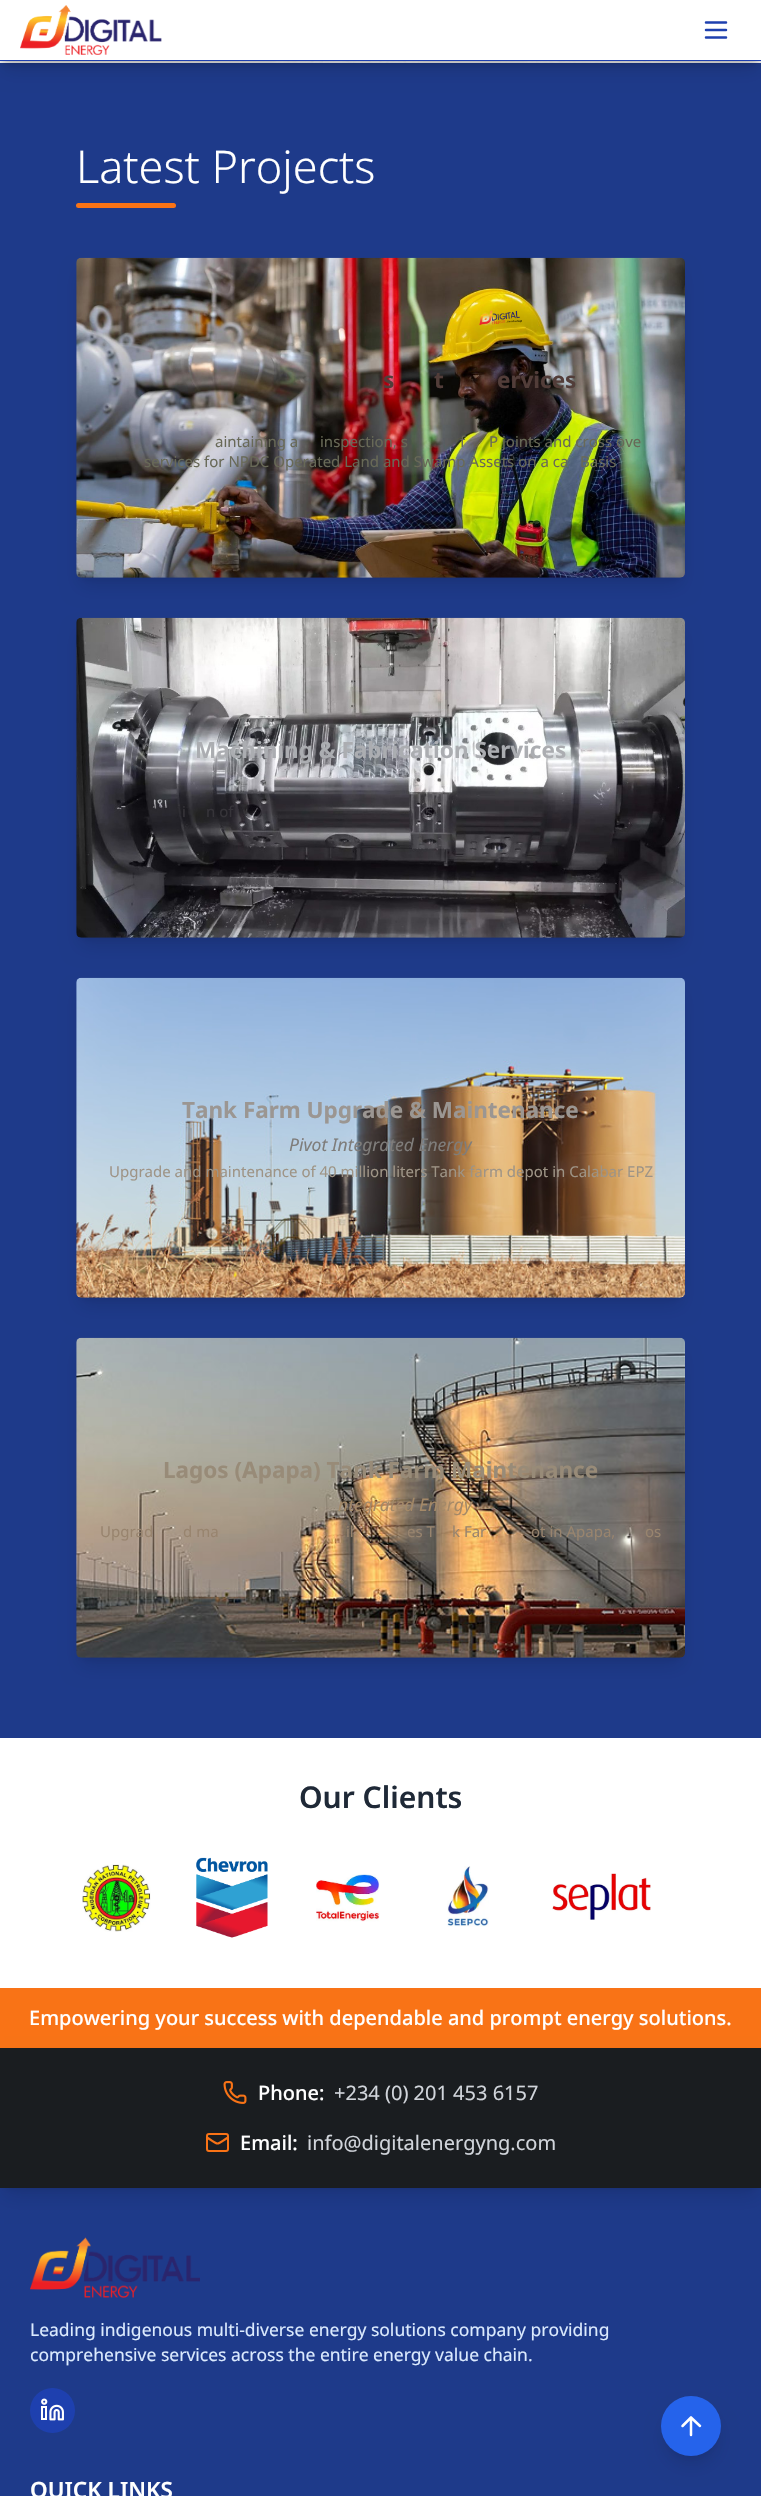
void draw(SkCanvas* canvas) {
  SkPaint paint;
  paint.setAntiAlias(true);
  auto face = [&](const char* family, int weight, float size, bool italic = false) {
    SkFontStyle style(weight, SkFontStyle::kNormal_Width,
      italic ? SkFontStyle::kItalic_Slant : SkFontStyle::kUpright_Slant);
    SkFont result(fontMgr->matchFamilyStyle(family, style), size);
    result.setSubpixel(true);
    return result;
  };
  auto paste = [&](const char* path, float x, float y, float w, float h) {
    auto image = SkImages::DeferredFromEncodedData(SkData::MakeFromFileName(path));
    canvas->drawImageRect(image, SkRect::MakeXYWH(x, y, w, h), SkSamplingOptions());
  };
  auto shape = [&](const char* data, bool evenOdd = false) {
    SkPath result = *SkParsePath::FromSVGString(data);
    if (evenOdd) result.setFillType(SkPathFillType::kEvenOdd);
    return result;
  };
  canvas->clear(0xffffffff);
  paste("img/2.png", 0, 61, 761, 2);
  paint.setColor(0xff1e3a8a);
  canvas->drawRect(SkRect::MakeXYWH(0, 63, 761, 1675), paint);
  paint.setColor(0x1a000000);
  paint.setMaskFilter(SkMaskFilter::MakeBlur(kNormal_SkBlurStyle, 4));
  canvas->drawRect(SkRect::MakeXYWH(5, 10, 751, 51), paint);
  paint.setMaskFilter(nullptr);
  paint.setMaskFilter(SkMaskFilter::MakeBlur(kNormal_SkBlurStyle, 9.5f));
  canvas->drawRect(SkRect::MakeXYWH(4, 16, 754, 54), paint);
  paint.setMaskFilter(nullptr);
  paint.setMaskFilter(SkMaskFilter::MakeBlur(kNormal_SkBlurStyle, 2.5f));
  canvas->drawRect(SkRect::MakeXYWH(3, 5, 756, 56), paint);
  paint.setMaskFilter(nullptr);
  paint.setMaskFilter(SkMaskFilter::MakeBlur(kNormal_SkBlurStyle, 4));
  canvas->drawRect(SkRect::MakeXYWH(1, 6, 759, 59), paint);
  paint.setMaskFilter(nullptr);
  paint.setColor(0xffffffff);
  canvas->drawRect(SkRect::MakeXYWH(0, 0, 761, 60), paint);
  paint.setColor(0xff1e40af);
  canvas->drawRect(SkRect::MakeXYWH(0, 60, 761, 1), paint);
  paste("img/1.png", 20, 5, 142, 50);
  paint.setStroke(true);
  paint.setStrokeWidth(2.5f);
  paint.setStrokeCap(SkPaint::kRound_Cap);
  paint.setStrokeJoin(SkPaint::kRound_Join);
  canvas->drawPath(shape("M706 30H726M706 37.5H726M706 22.5H726"), paint);
  paint.setStroke(false);
  paint.setColor(0xfff97316);
  canvas->drawRoundRect(SkRect::MakeXYWH(76, 203, 100, 5), 2.5f, 2.5f, paint);
  paint.setColor(0x1a000000);
  paint.setMaskFilter(SkMaskFilter::MakeBlur(kNormal_SkBlurStyle, 4));
  canvas->drawRect(SkRect::MakeXYWH(81, 268, 599, 310), paint);
  paint.setMaskFilter(nullptr);
  paint.setMaskFilter(SkMaskFilter::MakeBlur(kNormal_SkBlurStyle, 9.5f));
  canvas->drawRoundRect(SkRect::MakeXYWH(80, 274, 601, 312), 1, 1, paint);
  paint.setMaskFilter(nullptr);
  paste("img/3.png", 76, 257, 609, 321);
  paint.setMaskFilter(SkMaskFilter::MakeBlur(kNormal_SkBlurStyle, 4));
  canvas->drawRect(SkRect::MakeXYWH(81, 628, 599, 310), paint);
  paint.setMaskFilter(nullptr);
  paint.setMaskFilter(SkMaskFilter::MakeBlur(kNormal_SkBlurStyle, 9.5f));
  canvas->drawRoundRect(SkRect::MakeXYWH(80, 634, 601, 312), 1, 1, paint);
  paint.setMaskFilter(nullptr);
  paste("img/4.png", 76, 617, 609, 321);
  paint.setMaskFilter(SkMaskFilter::MakeBlur(kNormal_SkBlurStyle, 4));
  canvas->drawRect(SkRect::MakeXYWH(81, 988, 599, 310), paint);
  paint.setMaskFilter(nullptr);
  paint.setMaskFilter(SkMaskFilter::MakeBlur(kNormal_SkBlurStyle, 9.5f));
  canvas->drawRoundRect(SkRect::MakeXYWH(80, 994, 601, 312), 1, 1, paint);
  paint.setMaskFilter(nullptr);
  paste("img/5.png", 76, 977, 609, 321);
  paint.setMaskFilter(SkMaskFilter::MakeBlur(kNormal_SkBlurStyle, 4));
  canvas->drawRect(SkRect::MakeXYWH(81, 1348, 599, 310), paint);
  paint.setMaskFilter(nullptr);
  paint.setMaskFilter(SkMaskFilter::MakeBlur(kNormal_SkBlurStyle, 9.5f));
  canvas->drawRoundRect(SkRect::MakeXYWH(80, 1354, 601, 312), 1, 1, paint);
  paint.setMaskFilter(nullptr);
  paste("img/6.png", 76, 1337, 609, 321);
  paste("img/7.png", 82, 1864, 69, 68);
  paste("img/8.png", 196, 1857, 72, 81);
  paste("img/9.png", 316, 1874, 64, 48);
  paste("img/10.png", 447, 1866, 42, 61);
  paste("img/11.png", 552, 1873, 99, 47);
  paint.setColor(0xff1e3a8a);
  canvas->drawRect(SkRect::MakeXYWH(0, 2188, 761, 308), paint);
  paint.setColor(0xfff97316);
  canvas->drawRect(SkRect::MakeXYWH(0, 1988, 761, 60), paint);
  paint.setColor(0x1a000000);
  paint.setMaskFilter(SkMaskFilter::MakeBlur(kNormal_SkBlurStyle, 4));
  canvas->drawRect(SkRect::MakeXYWH(5, 2058, 751, 130), paint);
  paint.setMaskFilter(nullptr);
  paint.setMaskFilter(SkMaskFilter::MakeBlur(kNormal_SkBlurStyle, 9.5f));
  canvas->drawRect(SkRect::MakeXYWH(4, 2064, 754, 132), paint);
  paint.setMaskFilter(nullptr);
  paint.setColor(0xff1a1d20);
  canvas->drawRect(SkRect::MakeXYWH(0, 2048, 761, 140), paint);
  paste("img/12.png", 223, 2081, 24, 23);
  paint.setStroke(true);
  paint.setStrokeWidth(2.1f);
  paint.setColor(0xfff97316);
  canvas->drawPath(shape("M228 2137.5C215 2145.5 220 2145.5 207 2137.5"), paint);
  paint.setStrokeWidth(2);
  paint.setStrokeCap(SkPaint::kButt_Cap);
  paint.setStrokeJoin(SkPaint::kMiter_Join);
  canvas->drawRoundRect(SkRect::MakeXYWH(207, 2134, 21, 17), 2, 2, paint);
  paste("img/13.png", 30, 2237, 170, 61);
  paint.setStroke(false);
  paint.setColor(0xff1e40af);
  canvas->drawCircle(52.5f, 2410.5f, 22.5f, paint);
  paste("img/14.png", 41, 2398, 23, 23);
  paint.setColor(0x1a000000);
  paint.setMaskFilter(SkMaskFilter::MakeBlur(kNormal_SkBlurStyle, 4));
  canvas->drawRoundRect(SkRect::MakeXYWH(666, 2406, 50, 50), 25, 25, paint);
  paint.setMaskFilter(nullptr);
  paint.setMaskFilter(SkMaskFilter::MakeBlur(kNormal_SkBlurStyle, 9.5f));
  canvas->drawRoundRect(SkRect::MakeXYWH(665, 2413, 53, 52), 26, 26, paint);
  paint.setMaskFilter(nullptr);
  paint.setColor(0xff2563eb);
  canvas->drawCircle(691, 2426, 30, paint);
  paint.setStroke(true);
  paint.setStrokeWidth(2.5f);
  paint.setStrokeCap(SkPaint::kRound_Cap);
  paint.setStrokeJoin(SkPaint::kRound_Join);
  paint.setColor(0xffffffff);
  canvas->drawPath(shape("M682.5 2426L691 2417.5L700 2426M691 2435V2417.5"), paint);
  auto f0 = face("Noto Sans", 300, 45);
  paint.setStroke(false);
  canvas->drawString("Latest Projects", 76, 183, f0, paint);
  auto f1 = face("Noto Sans", 700, 22.5f);
  paint.setColor(0xff523d39);
  {
    const struct { const char* s; float x, y; } items[] = {
      {"s", 383, 388},
      {"t", 434, 388},
      {"ervices", 497, 388},
    };
    for (auto [s, x, y] : items) {
      canvas->drawString(s, x, y, f1, paint);
    }
  }
  auto f2 = face("Noto Sans", 400, 15);
  paint.setColor(0xff686957);
  {
    const struct { const char* s; float x, y; } items[] = {
      {"aintaining a", 215, 447},
      {"inspection, s", 320, 447},
      {"f", 460, 447},
      {"P joints and cross ove", 489, 447},
      {"services for NPDC Operated Land and Swamp Assets on a ca", 144, 467},
      {"Basis", 580, 467},
    };
    for (auto [s, x, y] : items) {
      canvas->drawString(s, x, y, f2, paint);
    }
  }
  paint.setColor(0xffabadb1);
  canvas->drawString("Machining & Fabrication Services", 195, 758, f1, paint);
  paint.setColor(0xff363439);
  {
    const struct { const char* s; float x, y; } items[] = {
      {"i", 182, 817},
      {"n of", 206, 817},
      {"s", 426, 817},
    };
    for (auto [s, x, y] : items) {
      canvas->drawString(s, x, y, f2, paint);
    }
  }
  paint.setColor(0xff9b9692);
  canvas->drawString("Tank Farm Upgrade & Maintenance", 182, 1118, f1, paint);
  auto f3 = face("Noto Sans", 400, 17.5f, true);
  paint.setColor(0xff7f7d7b);
  canvas->drawString("Pivot Integrated Energy", 289, 1151, f3, paint);
  paint.setColor(0xff9e9486);
  canvas->drawString("Upgrade and maintenance of 40 million liters Tank farm depot in Calabar EPZ", 109, 1177, f2, paint);
  paint.setColor(0xff988b78);
  canvas->drawString("Lagos (Apapa) Tank Farm Maintenance", 163, 1478, f1, paint);
  paint.setColor(0xffa48968);
  canvas->drawString("ntegrated Energy", 338, 1511, f3, paint);
  paint.setColor(0xff98846e);
  {
    const struct { const char* s; float x, y; } items[] = {
      {"Upgrad", 100, 1537},
      {"d ma", 183, 1537},
      {"il", 346, 1537},
      {"es T", 407, 1537},
      {"k Far", 452, 1537},
      {"ot in Apapa,", 531, 1537},
      {"os", 645, 1537},
    };
    for (auto [s, x, y] : items) {
      canvas->drawString(s, x, y, f2, paint);
    }
  }
  auto f4 = face("Noto Sans", 600, 30);
  paint.setColor(0xff1f2937);
  canvas->drawString("Our Clients", 299, 1808, f4, paint);
  auto f5 = face("Noto Sans", 500, 20);
  paint.setColor(0xffffffff);
  canvas->drawString("Empowering your success with dependable and prompt energy solutions.", 29, 2025, f5, paint);
  canvas->drawString("Phone:", 258, 2100, f5, paint);
  auto f6 = face("Noto Sans", 400, 20);
  paint.setColor(0xffd1d5db);
  canvas->drawString("+234 (0) 201 453 6157", 334, 2100, f6, paint);
  paint.setColor(0xffffffff);
  canvas->drawString("Email:", 240, 2150, f5, paint);
  paint.setColor(0xffd1d5db);
  canvas->drawString("info@digitalenergyng.com", 307, 2150, f6, paint);
  auto f7 = face("Noto Sans", 400, 17.5f);
  paint.setColor(0xffdbeafe);
  canvas->drawString("Leading indigenous multi-diverse energy solutions company providing", 30, 2336, f7, paint);
  canvas->drawString("comprehensive services across the entire energy value chain.", 30, 2361, f7, paint);
  auto f8 = face("Noto Sans", 600, 22.5f);
  paint.setColor(0xffffffff);
  canvas->drawString("QUICK LINKS", 30, 2498, f8, paint);
}
